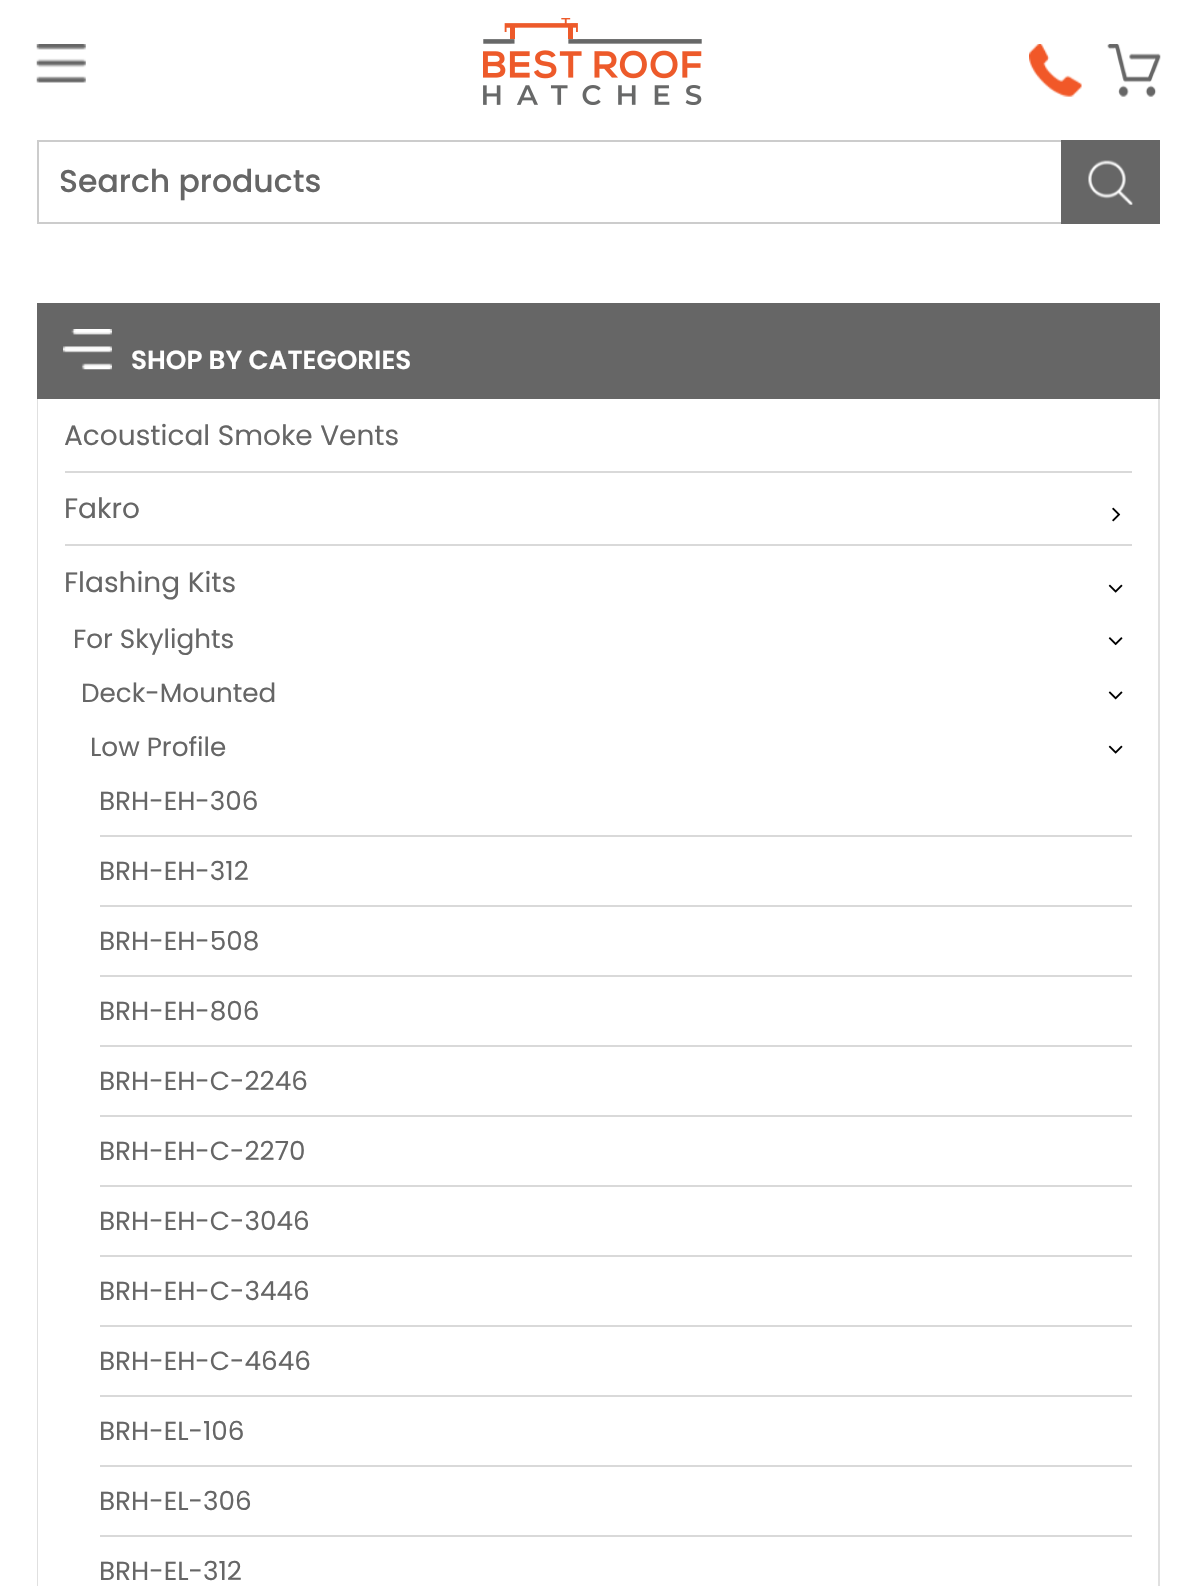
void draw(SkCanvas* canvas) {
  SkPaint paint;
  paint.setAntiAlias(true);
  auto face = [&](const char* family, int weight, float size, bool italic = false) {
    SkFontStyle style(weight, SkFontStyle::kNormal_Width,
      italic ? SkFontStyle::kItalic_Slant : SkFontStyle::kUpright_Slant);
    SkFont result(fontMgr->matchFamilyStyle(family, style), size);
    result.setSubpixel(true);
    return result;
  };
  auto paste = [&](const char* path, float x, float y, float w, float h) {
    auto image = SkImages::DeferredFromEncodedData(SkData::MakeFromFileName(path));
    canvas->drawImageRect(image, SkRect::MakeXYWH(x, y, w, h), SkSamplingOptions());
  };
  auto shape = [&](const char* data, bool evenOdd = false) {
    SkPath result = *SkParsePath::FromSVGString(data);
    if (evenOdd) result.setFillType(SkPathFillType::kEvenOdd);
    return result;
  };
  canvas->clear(0xffffffff);
  paste("img/1.png", 36, 44, 50, 39);
  paste("img/2.png", 483, 18, 219, 87);
  paste("img/3.png", 1029, 44, 53, 53);
  paste("img/4.png", 1107, 44, 54, 53);
  paint.setStroke(true);
  paint.setStrokeWidth(2);
  paint.setColor(0xffcccccc);
  canvas->drawRect(SkRect::MakeXYWH(38, 141, 1121, 82), paint);
  paint.setStroke(false);
  paint.setColor(0xff666666);
  canvas->drawRect(SkRect::MakeXYWH(1061, 140, 99, 84), paint);
  paste("img/5.png", 1088, 160, 45, 45);
  canvas->drawRect(SkRect::MakeXYWH(37, 303, 1123, 96), paint);
  paste("img/6.png", 63, 329, 49, 41);
  paint.setColor(0xffe0e0e0);
  canvas->drawPath(shape("M1160 399V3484L1158 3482V399Z"), paint);
  canvas->drawPath(shape("M37 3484V399H38V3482Z"), paint);
  paint.setColor(0xffd9d9d9);
  canvas->drawRect(SkRect::MakeXYWH(65, 471, 1067, 2), paint);
  canvas->drawRect(SkRect::MakeXYWH(65, 544, 1067, 2), paint);
  paste("img/7.png", 1112, 507, 9, 15);
  paste("img/8.png", 1108, 584, 15, 9);
  paste("img/9.png", 1108, 637, 15, 9);
  paste("img/10.png", 1108, 691, 15, 9);
  paste("img/8.png", 1108, 745, 15, 9);
  {
    const struct { float x, y, w, h; SkColor color; } items[] = {
      {100, 835, 1032, 2, 0xffd9d9d9},
      {100, 905, 1032, 2, 0xffd9d9d9},
      {100, 975, 1032, 2, 0xffd9d9d9},
      {100, 1045, 1032, 2, 0xffd9d9d9},
      {100, 1115, 1032, 2, 0xffd9d9d9},
      {100, 1185, 1032, 2, 0xffd9d9d9},
      {100, 1255, 1032, 2, 0xffd9d9d9},
      {100, 1325, 1032, 2, 0xffd9d9d9},
      {100, 1395, 1032, 2, 0xffd9d9d9},
      {100, 1465, 1032, 2, 0xffd9d9d9},
      {100, 1535, 1032, 2, 0xffd9d9d9},
    };
    for (auto [x, y, w, h, color] : items) {
      paint.setColor(color);
      canvas->drawRect(SkRect::MakeXYWH(x, y, w, h), paint);
    }
  }
  auto f0 = face("Poppins", 500, 31.5f);
  paint.setColor(0xff666666);
  canvas->drawString("Search products", 59, 192, f0, paint);
  auto f1 = face("Poppins", 600, 26.25f);
  paint.setColor(0xffffffff);
  canvas->drawString("SHOP BY CATEGORIES", 131, 369, f1, paint);
  auto f2 = face("Poppins", 400, 28);
  paint.setColor(0xff666666);
  {
    const struct { const char* s; float x, y; } items[] = {
      {"Acoustical Smoke Vents", 64, 445},
      {"Fakro", 64, 518},
      {"Flashing Kits", 64, 592},
    };
    for (auto [s, x, y] : items) {
      canvas->drawString(s, x, y, f2, paint);
    }
  }
  auto f3 = face("Poppins", 400, 26.25f);
  {
    const struct { const char* s; float x, y; } items[] = {
      {"For Skylights", 73, 648},
      {"Deck-Mounted", 81, 702},
      {"Low Profile", 90, 756},
      {"BRH-EH-306", 99, 810},
      {"BRH-EH-312", 99, 880},
      {"BRH-EH-508", 99, 950},
      {"BRH-EH-806", 99, 1020},
      {"BRH-EH-C-2246", 99, 1090},
      {"BRH-EH-C-2270", 99, 1160},
      {"BRH-EH-C-3046", 99, 1230},
      {"BRH-EH-C-3446", 99, 1300},
      {"BRH-EH-C-4646", 99, 1370},
      {"BRH-EL-106", 99, 1440},
      {"BRH-EL-306", 99, 1510},
      {"BRH-EL-312", 99, 1580},
    };
    for (auto [s, x, y] : items) {
      canvas->drawString(s, x, y, f3, paint);
    }
  }
}
